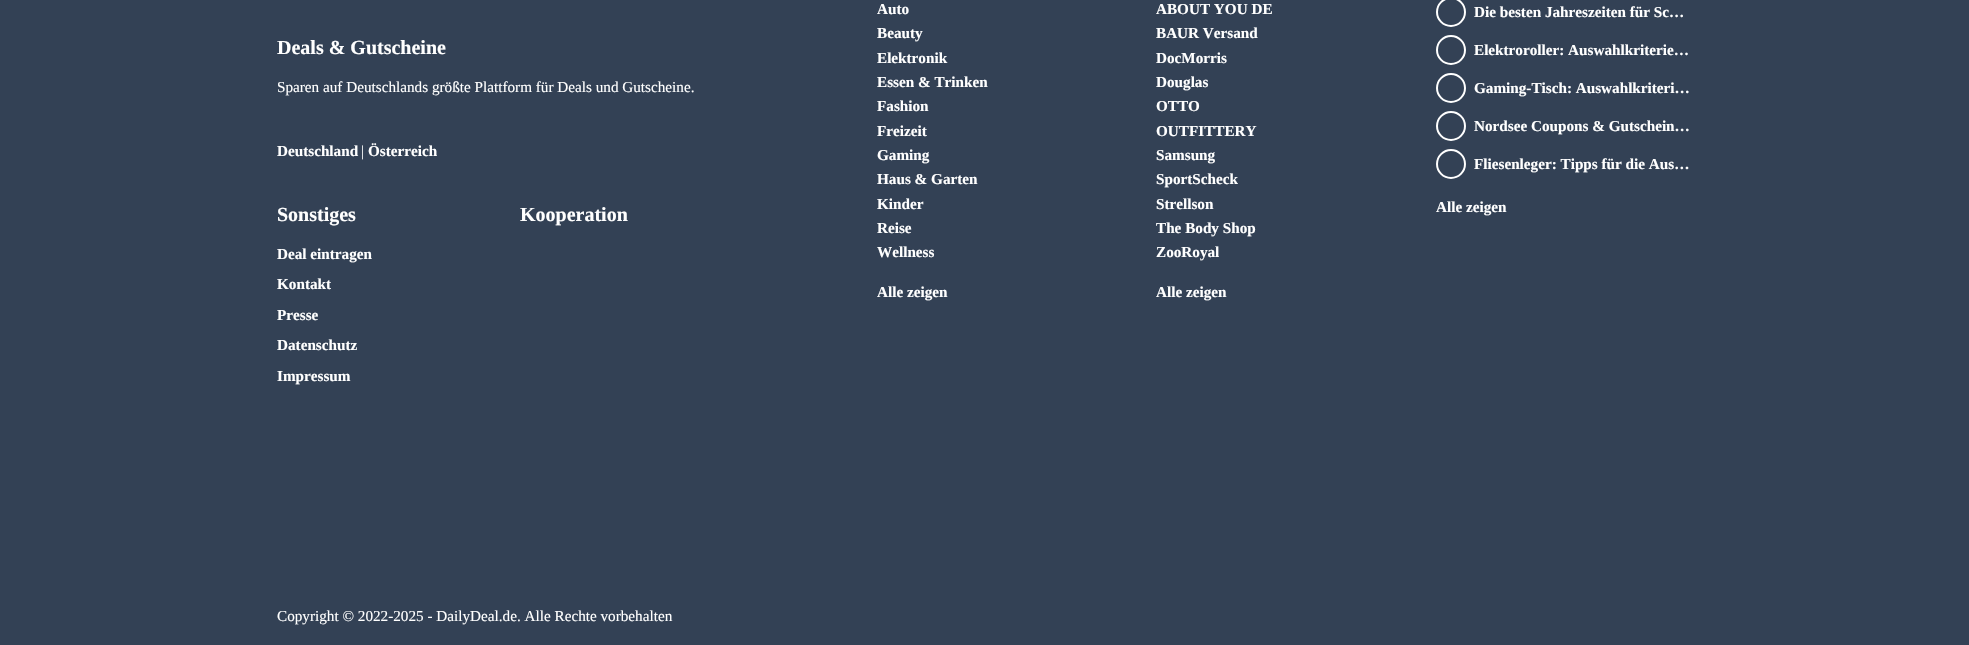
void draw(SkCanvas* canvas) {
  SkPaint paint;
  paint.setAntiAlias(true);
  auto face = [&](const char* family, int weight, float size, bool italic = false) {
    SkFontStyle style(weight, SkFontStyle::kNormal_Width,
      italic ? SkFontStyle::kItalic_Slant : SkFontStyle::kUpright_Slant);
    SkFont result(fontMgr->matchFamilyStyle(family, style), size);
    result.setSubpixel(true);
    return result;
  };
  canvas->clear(0xff334155);
  paint.setStroke(true);
  paint.setStrokeWidth(2);
  paint.setColor(0xffffffff);
  canvas->drawCircle(1451, 12, 14, paint);
  canvas->drawCircle(1451, 50, 14, paint);
  canvas->drawCircle(1451, 88, 14, paint);
  canvas->drawCircle(1451, 126, 14, paint);
  canvas->drawCircle(1451, 164, 14, paint);
  auto f0 = face("Liberation Serif", 700, 20);
  paint.setStroke(false);
  canvas->drawString("Deals & Gutscheine", 277, 54, f0, paint);
  auto f1 = face("Liberation Serif", 400, 15.2f);
  canvas->drawString("Sparen auf Deutschlands größte Plattform für Deals und Gutscheine.", 277, 92, f1, paint);
  auto f2 = face("Liberation Serif", 700, 15.2f);
  canvas->drawString("Deutschland", 277, 156, f2, paint);
  canvas->drawString("|", 361, 156, f1, paint);
  canvas->drawString("Österreich", 368, 156, f2, paint);
  canvas->drawString("Sonstiges", 277, 221, f0, paint);
  {
    const struct { const char* s; float x, y; } items[] = {
      {"Deal eintragen", 277, 259},
      {"Kontakt", 277, 289},
      {"Presse", 277, 320},
      {"Datenschutz", 277, 350},
      {"Impressum", 277, 381},
    };
    for (auto [s, x, y] : items) {
      canvas->drawString(s, x, y, f2, paint);
    }
  }
  canvas->drawString("Kooperation", 520, 221, f0, paint);
  {
    const struct { const char* s; float x, y; } items[] = {
      {"Auto", 877, 14},
      {"Beauty", 877, 38},
      {"Elektronik", 877, 63},
      {"Essen & Trinken", 877, 87},
      {"Fashion", 877, 111},
      {"Freizeit", 877, 136},
      {"Gaming", 877, 160},
      {"Haus & Garten", 877, 184},
      {"Kinder", 877, 209},
      {"Reise", 877, 233},
      {"Wellness", 877, 257},
      {"Alle zeigen", 877, 297},
      {"ABOUT YOU DE", 1156, 14},
      {"BAUR Versand", 1156, 38},
      {"DocMorris", 1156, 63},
      {"Douglas", 1156, 87},
      {"OTTO", 1156, 111},
      {"OUTFITTERY", 1156, 136},
      {"Samsung", 1156, 160},
      {"SportScheck", 1156, 184},
      {"Strellson", 1156, 209},
      {"The Body Shop", 1156, 233},
      {"ZooRoyal", 1156, 257},
      {"Alle zeigen", 1156, 297},
      {"Die besten Jahreszeiten für Sc…", 1474, 17},
      {"Elektroroller: Auswahlkriterie…", 1474, 55},
      {"Gaming-Tisch: Auswahlkriteri…", 1474, 93},
      {"Nordsee Coupons & Gutschein…", 1474, 131},
      {"Fliesenleger: Tipps für die Aus…", 1474, 169},
      {"Alle zeigen", 1436, 212},
    };
    for (auto [s, x, y] : items) {
      canvas->drawString(s, x, y, f2, paint);
    }
  }
  canvas->drawString("Copyright © 2022-2025 - DailyDeal.de. Alle Rechte vorbehalten", 277, 621, f1, paint);
}
